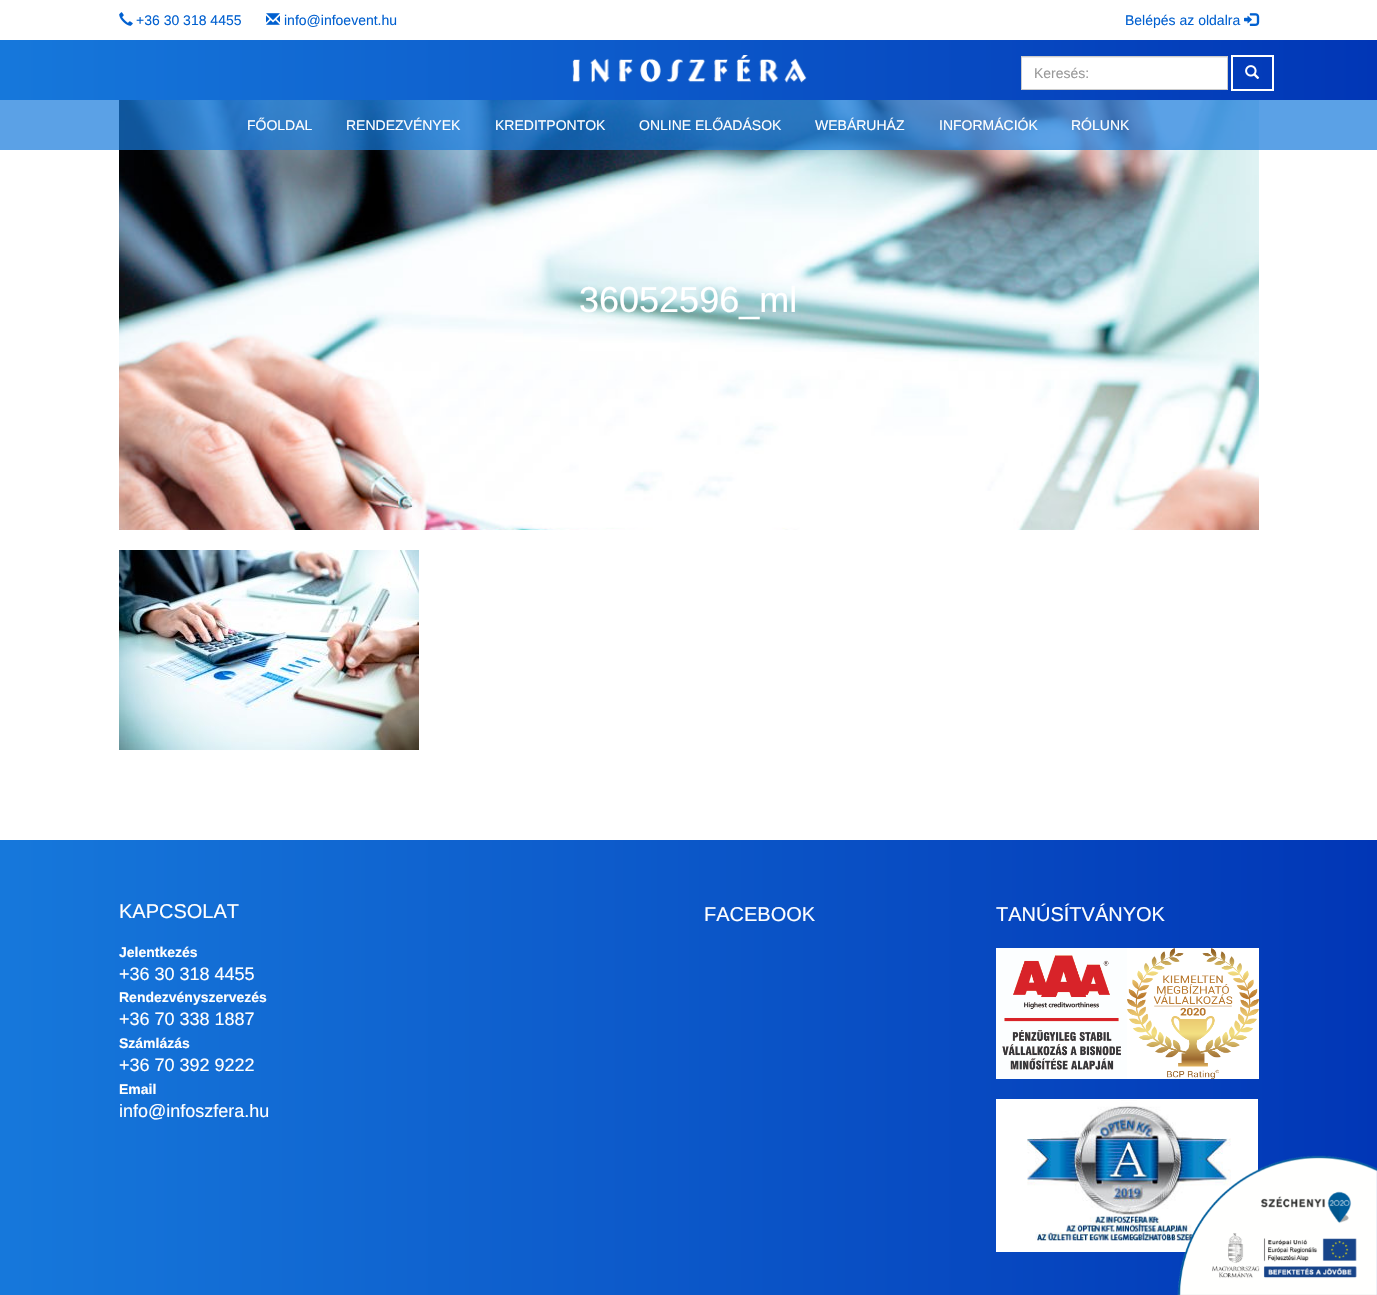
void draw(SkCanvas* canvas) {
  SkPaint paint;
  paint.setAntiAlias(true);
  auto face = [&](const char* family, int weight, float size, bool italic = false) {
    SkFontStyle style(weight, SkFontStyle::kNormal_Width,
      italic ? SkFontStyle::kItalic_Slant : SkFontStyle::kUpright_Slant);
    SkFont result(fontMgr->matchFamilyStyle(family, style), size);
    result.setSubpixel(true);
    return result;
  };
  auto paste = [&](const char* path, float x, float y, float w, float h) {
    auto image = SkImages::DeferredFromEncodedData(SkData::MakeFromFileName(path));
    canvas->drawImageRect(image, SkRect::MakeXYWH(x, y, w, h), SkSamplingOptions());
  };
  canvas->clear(0xffffffff);
  paste("img/1.png", 119, 12, 14, 14);
  paste("img/2.png", 266, 13, 14, 12);
  paste("img/3.png", 1244, 13, 16, 13);
  {
    const SkColor colors[] = {0xff1678db, 0xff0136b6};
    const float stops[] = {0, 1};
    const SkPoint ends[] = {{0, 70}, {1377, 70}};
    paint.setShader(SkGradientShader::MakeLinear(ends, colors, stops, 2, SkTileMode::kClamp));
    paint.setAlpha(255);
  }
  canvas->drawRect(SkRect::MakeXYWH(0, 40, 1377, 60), paint);
  paste("img/4.png", 572, 55, 235, 28);
  paint.setShader(nullptr);
  paint.setColor(0xffffffff);
  canvas->drawRect(SkRect::MakeXYWH(1022, 58, 205, 31), paint);
  paint.setColor(0xffececec);
  canvas->drawRect(SkRect::MakeXYWH(1022, 57, 205, 1), paint);
  paint.setStroke(true);
  paint.setStrokeWidth(1);
  paint.setColor(0xffcccccc);
  canvas->drawRect(SkRect::MakeXYWH(1021.5f, 56.5f, 206, 33), paint);
  paint.setStrokeWidth(2);
  paint.setColor(0xffffffff);
  canvas->drawRect(SkRect::MakeXYWH(1232, 56, 41, 34), paint);
  paste("img/5.png", 1245, 65, 15, 14);
  paste("img/6.png", 119, 100, 1140, 430);
  paint.setStroke(false);
  paint.setColor(0xb31679db);
  canvas->drawRect(SkRect::MakeXYWH(0, 100, 1377, 50), paint);
  paste("img/7.png", 119, 550, 300, 200);
  {
    const SkColor colors[] = {0xff1678db, 0xff0136b6};
    const float stops[] = {0, 1};
    const SkPoint ends[] = {{0, 1076}, {1377, 1076}};
    paint.setShader(SkGradientShader::MakeLinear(ends, colors, stops, 2, SkTileMode::kClamp));
    paint.setAlpha(255);
  }
  canvas->drawRect(SkRect::MakeXYWH(0, 840, 1377, 455), paint);
  paste("img/8.png", 996, 948, 131, 131);
  paint.setShader(nullptr);
  paint.setColor(0xffffffff);
  canvas->drawRect(SkRect::MakeXYWH(1127, 948, 132, 131), paint);
  paste("img/9.png", 1127, 948, 132, 131);
  paste("img/10.png", 996, 1099, 262, 153);
  paste("img/11.png", 1177, 1155, 200, 140);
  auto f0 = face("Liberation Sans", 400, 14);
  paint.setColor(0xff0160d0);
  {
    const struct { const char* s; float x, y; } items[] = {
      {"+36 30 318 4455", 136, 25},
      {"info@infoevent.hu", 284, 25},
      {"Belépés az oldalra", 1125, 25},
    };
    for (auto [s, x, y] : items) {
      canvas->drawString(s, x, y, f0, paint);
    }
  }
  paint.setColor(0xff999999);
  canvas->drawString("Keresés:", 1034, 78, f0, paint);
  paint.setColor(0xffffffff);
  {
    const struct { const char* s; float x, y; } items[] = {
      {"FŐOLDAL", 247, 130},
      {"RENDEZVÉNYEK", 346, 130},
      {"KREDITPONTOK", 495, 130},
      {"ONLINE ELŐADÁSOK", 639, 130},
      {"WEBÁRUHÁZ", 815, 130},
      {"INFORMÁCIÓK", 939, 130},
      {"RÓLUNK", 1071, 130},
    };
    for (auto [s, x, y] : items) {
      canvas->drawString(s, x, y, f0, paint);
    }
  }
  auto f1 = face("Liberation Sans", 400, 36);
  canvas->drawString("36052596_ml", 579, 312, f1, paint);
  auto f2 = face("Liberation Sans", 400, 20);
  canvas->drawString("KAPCSOLAT", 119, 918, f2, paint);
  auto f3 = face("Liberation Sans", 700, 14);
  canvas->drawString("Jelentkezés", 119, 957, f3, paint);
  auto f4 = face("Liberation Sans", 400, 18);
  canvas->drawString("+36 30 318 4455", 119, 980, f4, paint);
  canvas->drawString("Rendezvényszervezés", 119, 1002, f3, paint);
  canvas->drawString("+36 70 338 1887", 119, 1025, f4, paint);
  canvas->drawString("Számlázás", 119, 1048, f3, paint);
  canvas->drawString("+36 70 392 9222", 119, 1071, f4, paint);
  canvas->drawString("Email", 119, 1094, f3, paint);
  canvas->drawString("info@infoszfera.hu", 119, 1117, f4, paint);
  canvas->drawString("FACEBOOK", 704, 921, f2, paint);
  canvas->drawString("TANÚSÍTVÁNYOK", 996, 921, f2, paint);
}
